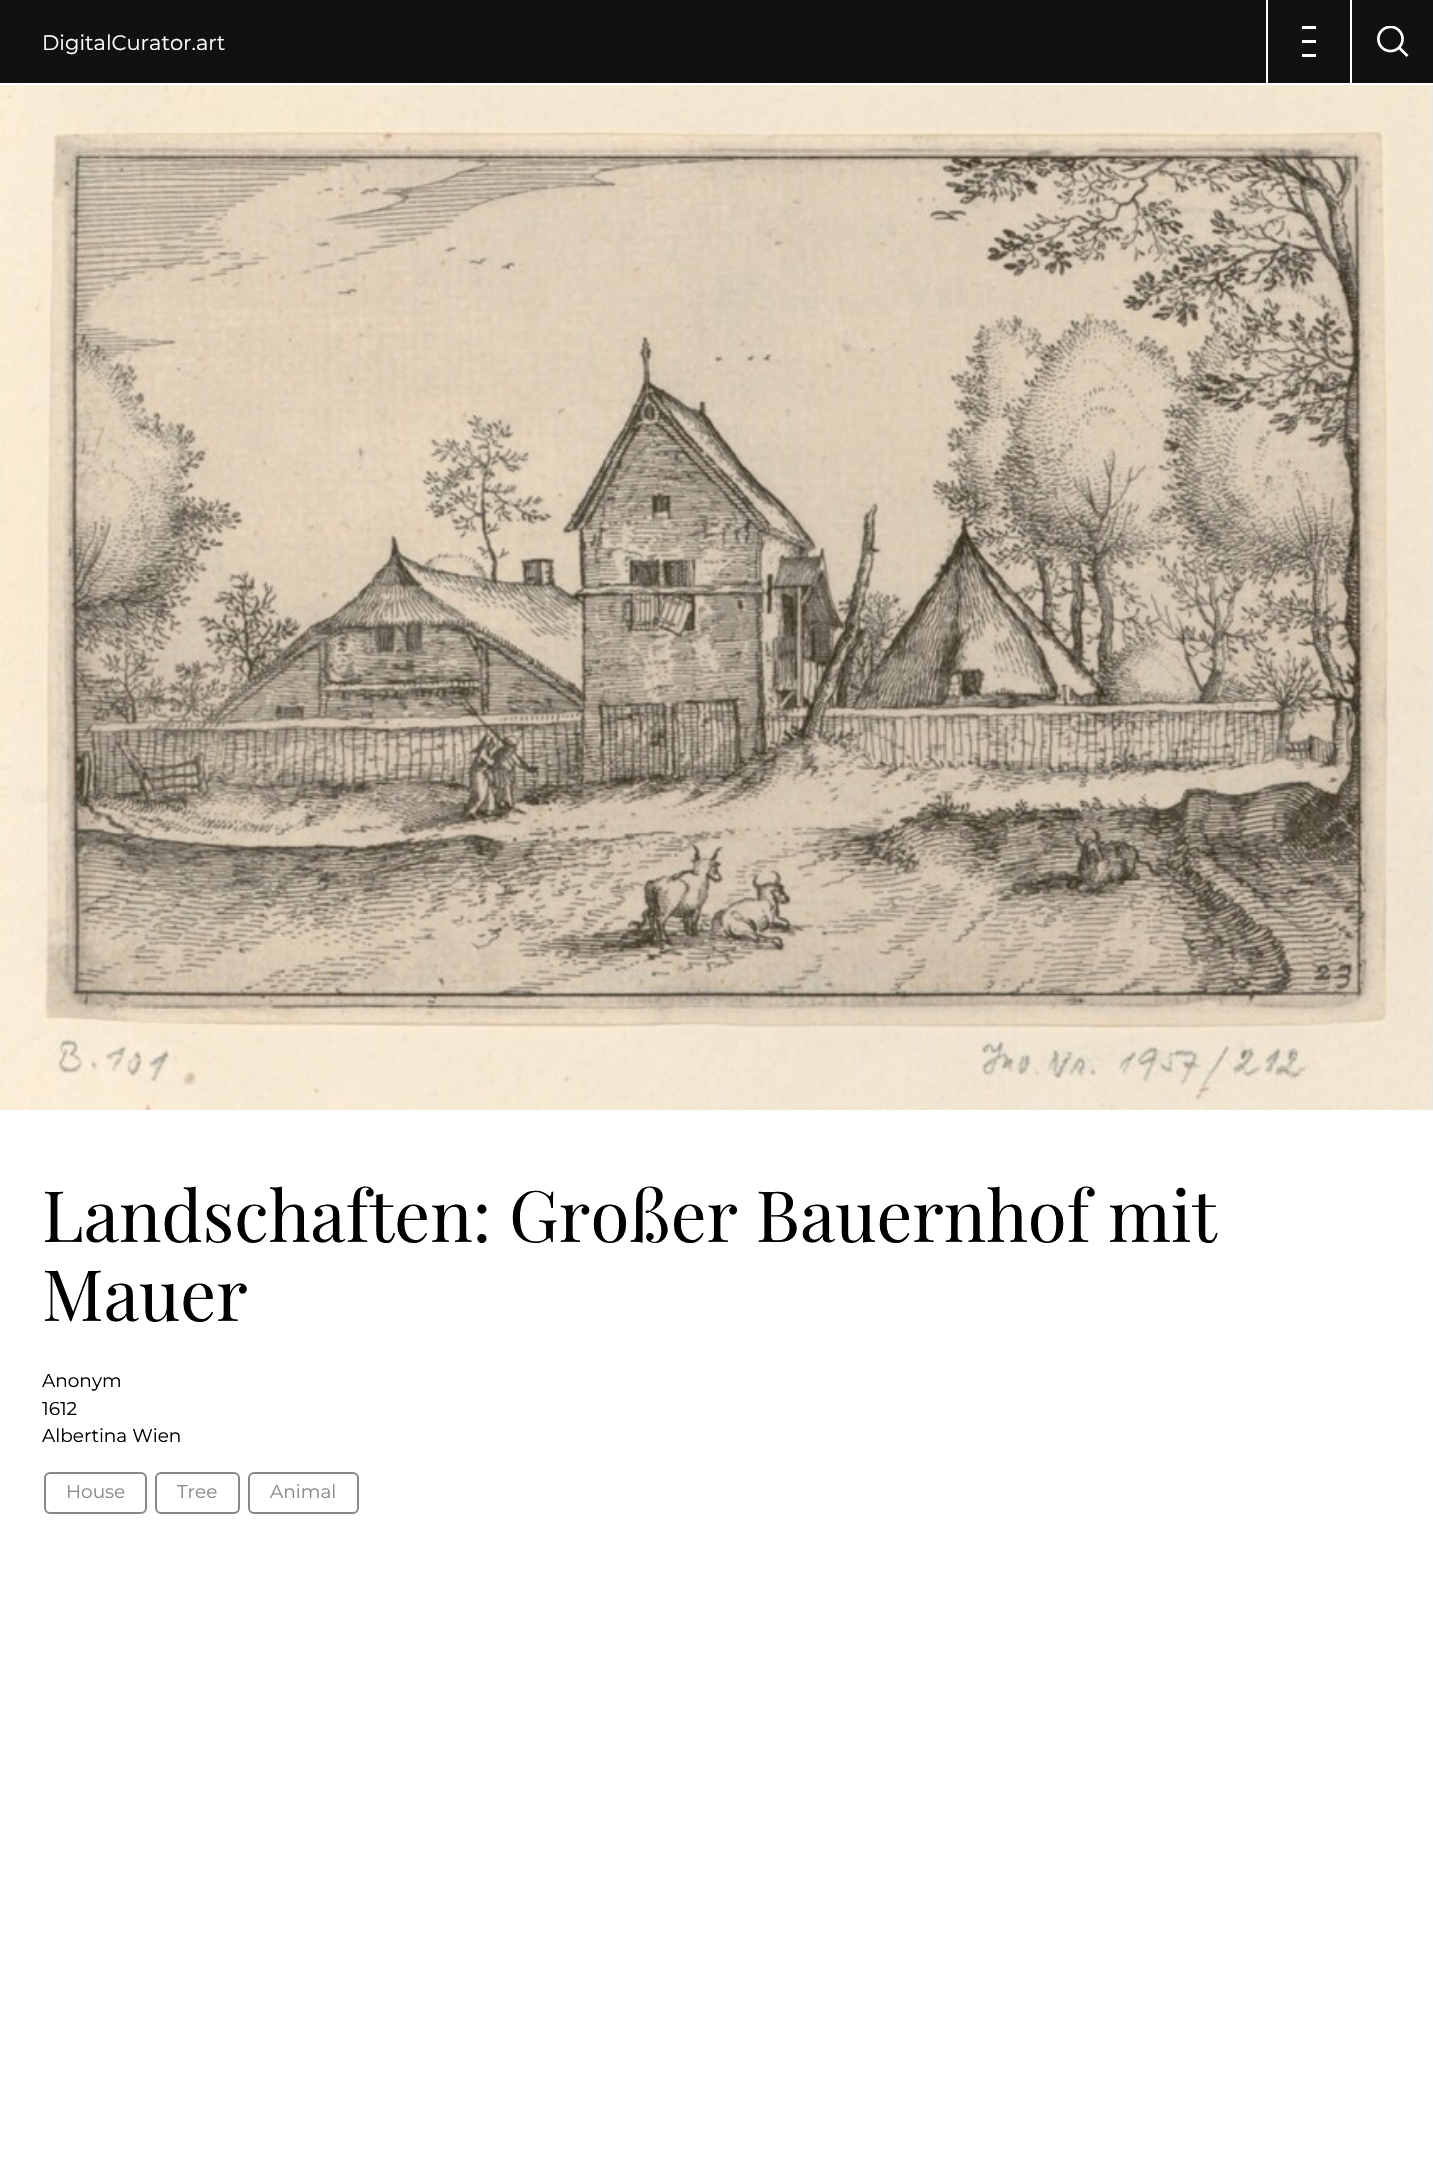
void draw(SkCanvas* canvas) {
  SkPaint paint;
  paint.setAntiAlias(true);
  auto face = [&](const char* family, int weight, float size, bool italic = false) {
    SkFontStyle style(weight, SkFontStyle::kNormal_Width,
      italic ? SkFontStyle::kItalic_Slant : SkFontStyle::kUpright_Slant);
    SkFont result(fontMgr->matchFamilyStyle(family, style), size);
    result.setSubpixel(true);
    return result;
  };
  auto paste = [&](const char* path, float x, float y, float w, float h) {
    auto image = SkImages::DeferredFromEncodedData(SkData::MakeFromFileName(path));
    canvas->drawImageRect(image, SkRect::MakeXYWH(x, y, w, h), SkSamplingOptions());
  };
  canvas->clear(0xff111111);
  {
    const struct { float x, y, w, h; SkColor color; } items[] = {
      {0, 83, 1433, 2, 0xffffffff},
      {1302, 54, 14, 3, 0xffffffff},
      {1302, 40, 14, 3, 0xffffffff},
      {1302, 26, 14, 3, 0xffffffff},
      {1266, 0, 2, 84, 0xffffffff},
    };
    for (auto [x, y, w, h, color] : items) {
      paint.setColor(color);
      canvas->drawRect(SkRect::MakeXYWH(x, y, w, h), paint);
    }
  }
  paste("img/1.png", 1377, 26, 32, 31);
  canvas->drawRect(SkRect::MakeXYWH(1350, 0, 2, 84), paint);
  canvas->drawRect(SkRect::MakeXYWH(0, 1110, 1433, 1059), paint);
  paste("img/2.png", 0, 85, 1433, 1025);
  paint.setStroke(true);
  paint.setStrokeWidth(2);
  paint.setColor(0xff888888);
  canvas->drawRoundRect(SkRect::MakeXYWH(45, 1473, 101, 40), 5, 5, paint);
  canvas->drawRoundRect(SkRect::MakeXYWH(156, 1473, 83, 40), 5, 5, paint);
  canvas->drawRoundRect(SkRect::MakeXYWH(249, 1473, 109, 40), 5, 5, paint);
  auto f0 = face("Montserrat", 400, 21);
  paint.setStroke(false);
  paint.setColor(0xffffffff);
  canvas->drawString("DigitalCurator.art", 42, 50, f0, paint);
  auto f1 = face("Playfair Display", 400, 70.9f);
  paint.setColor(0xff000000);
  canvas->drawString("Landschaften: Großer Bauernhof mit", 42, 1242, f1, paint);
  canvas->drawString("Mauer", 42, 1321, f1, paint);
  auto f2 = face("Montserrat", 400, 18.5f);
  {
    const struct { const char* s; float x, y; } items[] = {
      {"Anonym", 42, 1387},
      {"1612", 42, 1415},
      {"Albertina Wien", 42, 1442},
    };
    for (auto [s, x, y] : items) {
      canvas->drawString(s, x, y, f2, paint);
    }
  }
  paint.setColor(0xff888888);
  {
    const struct { const char* s; float x, y; } items[] = {
      {"House", 66, 1498},
      {"Tree", 177, 1498},
      {"Animal", 270, 1498},
    };
    for (auto [s, x, y] : items) {
      canvas->drawString(s, x, y, f2, paint);
    }
  }
}
